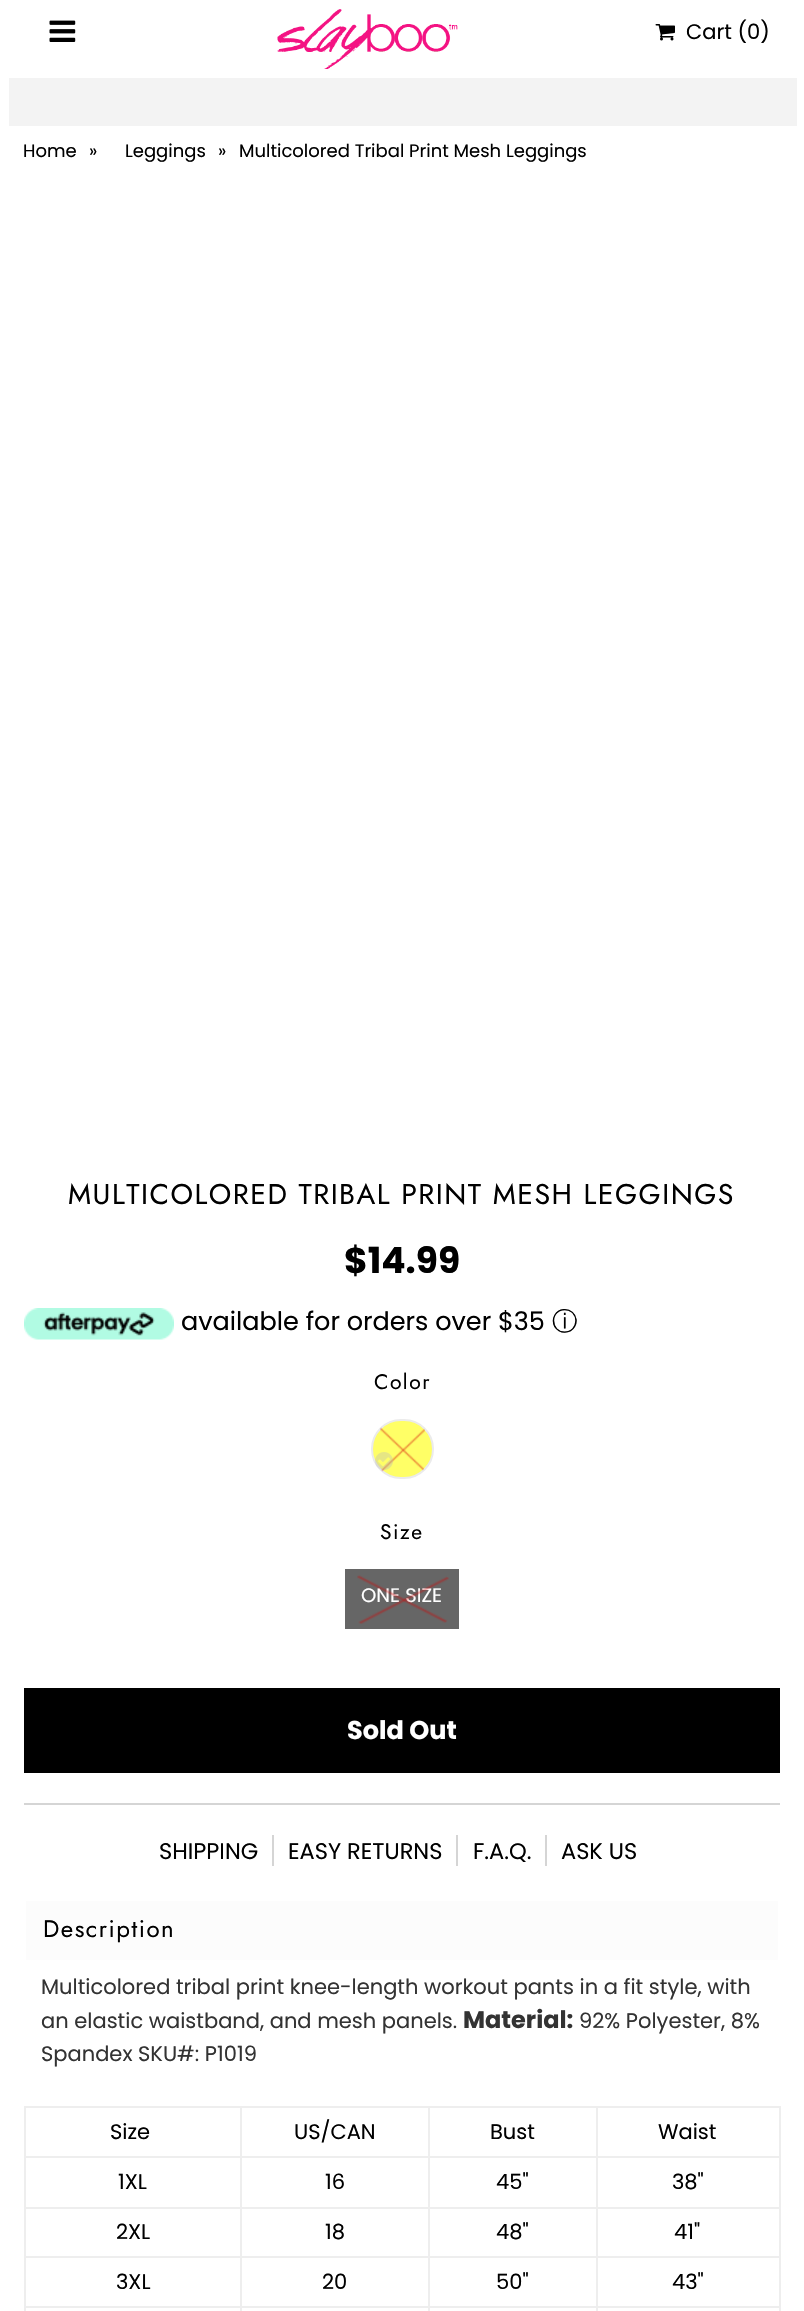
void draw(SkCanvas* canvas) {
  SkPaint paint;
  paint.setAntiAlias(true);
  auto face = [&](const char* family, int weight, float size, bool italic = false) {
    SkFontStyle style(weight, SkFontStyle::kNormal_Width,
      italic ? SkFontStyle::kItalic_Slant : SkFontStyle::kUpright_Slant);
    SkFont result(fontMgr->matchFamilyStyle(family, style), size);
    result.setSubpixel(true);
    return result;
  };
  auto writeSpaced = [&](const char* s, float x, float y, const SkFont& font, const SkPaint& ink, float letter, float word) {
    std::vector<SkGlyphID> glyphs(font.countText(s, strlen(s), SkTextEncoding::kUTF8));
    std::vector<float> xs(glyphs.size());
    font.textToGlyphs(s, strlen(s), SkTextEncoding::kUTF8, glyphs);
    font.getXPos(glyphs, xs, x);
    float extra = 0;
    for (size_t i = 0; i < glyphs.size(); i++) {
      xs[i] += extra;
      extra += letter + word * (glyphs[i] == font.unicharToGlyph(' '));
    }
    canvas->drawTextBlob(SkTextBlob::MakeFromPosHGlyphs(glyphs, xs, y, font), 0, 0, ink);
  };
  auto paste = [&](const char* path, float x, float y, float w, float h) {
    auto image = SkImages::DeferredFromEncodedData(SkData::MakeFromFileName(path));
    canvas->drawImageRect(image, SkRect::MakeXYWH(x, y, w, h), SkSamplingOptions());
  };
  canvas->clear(0xffffffff);
  paste("img/1.png", 49, 20, 27, 22);
  paste("img/2.png", 277, 9, 181, 60);
  paste("img/3.png", 655, 24, 20, 17);
  paint.setColor(0xfff3f3f3);
  canvas->drawRect(SkRect::MakeXYWH(9, 78, 788, 48), paint);
  paint.setColor(0xffd5d5d5);
  canvas->drawRect(SkRect::MakeXYWH(24, 1803, 756, 2), paint);
  paste("img/4.png", 24, 1308, 150, 32);
  paint.setColor(0xffffff66);
  canvas->drawRoundRect(SkRect::MakeXYWH(372, 1420, 61, 58), 29, 29, paint);
  paint.setStroke(true);
  paint.setStrokeWidth(2);
  paint.setColor(0xffebebeb);
  canvas->drawRoundRect(SkRect::MakeXYWH(372, 1420, 61, 58), 29, 29, paint);
  paste("img/5.png", 380, 1427, 45, 45);
  paste("img/6.png", 375, 1452, 18, 18);
  paint.setStroke(false);
  {
    const struct { float x, y, w, h; SkColor color; } items[] = {
      {345, 1569, 114, 60, 0xff666666},
      {24, 1688, 756, 85, 0xff000000},
      {272, 1835, 2, 31, 0xffd5d5d5},
      {456, 1835, 2, 31, 0xffd5d5d5},
      {545, 1835, 2, 31, 0xffd5d5d5},
      {26, 1901, 752, 59, 0xfffcfcfc},
      {596, 2106, 184, 2, 0xffeeeeee},
      {596, 2156, 184, 2, 0xffeeeeee},
      {596, 2207, 184, 2, 0xffeeeeee},
      {596, 2256, 184, 2, 0xffeeeeee},
      {596, 2306, 184, 2, 0xffeeeeee},
      {596, 2306, 2, 5, 0xffeeeeee},
      {428, 2306, 169, 2, 0xffeeeeee},
      {596, 2256, 2, 51, 0xffeeeeee},
      {428, 2256, 169, 2, 0xffeeeeee},
      {596, 2207, 2, 51, 0xffeeeeee},
      {428, 2207, 169, 2, 0xffeeeeee},
      {596, 2156, 2, 52, 0xffeeeeee},
      {428, 2156, 169, 2, 0xffeeeeee},
      {596, 2106, 2, 51, 0xffeeeeee},
      {428, 2106, 169, 2, 0xffeeeeee},
      {428, 2306, 2, 5, 0xffeeeeee},
      {240, 2306, 189, 2, 0xffeeeeee},
      {428, 2256, 2, 51, 0xffeeeeee},
      {240, 2256, 189, 2, 0xffeeeeee},
      {428, 2207, 2, 51, 0xffeeeeee},
      {240, 2207, 189, 2, 0xffeeeeee},
      {428, 2156, 2, 52, 0xffeeeeee},
      {240, 2156, 189, 2, 0xffeeeeee},
      {428, 2106, 2, 51, 0xffeeeeee},
      {240, 2106, 189, 2, 0xffeeeeee},
      {240, 2306, 2, 5, 0xffeeeeee},
      {24, 2306, 218, 2, 0xffeeeeee},
      {240, 2256, 2, 51, 0xffeeeeee},
      {24, 2256, 218, 2, 0xffeeeeee},
      {240, 2207, 2, 51, 0xffeeeeee},
      {24, 2207, 218, 2, 0xffeeeeee},
      {240, 2156, 2, 52, 0xffeeeeee},
      {24, 2156, 218, 2, 0xffeeeeee},
      {240, 2106, 2, 51, 0xffeeeeee},
      {24, 2106, 218, 2, 0xffeeeeee},
      {24, 2306, 2, 5, 0xffeeeeee},
      {24, 2256, 2, 51, 0xffeeeeee},
      {24, 2207, 2, 51, 0xffeeeeee},
      {24, 2156, 2, 52, 0xffeeeeee},
      {24, 2106, 2, 51, 0xffeeeeee},
      {779, 2306, 2, 5, 0xffeeeeee},
      {779, 2256, 2, 51, 0xffeeeeee},
      {779, 2207, 2, 51, 0xffeeeeee},
      {779, 2156, 2, 52, 0xffeeeeee},
      {779, 2106, 2, 51, 0xffeeeeee},
    };
    for (auto [x, y, w, h, color] : items) {
      paint.setColor(color);
      canvas->drawRect(SkRect::MakeXYWH(x, y, w, h), paint);
    }
  }
  auto f0 = face("Poppins", 400, 21);
  paint.setColor(0xff000000);
  canvas->drawString("Cart (0)", 686, 39, f0, paint);
  auto f1 = face("Poppins", 400, 18);
  {
    const struct { const char* s; float x, y; } items[] = {
      {"Home", 23, 157},
      {"»", 89, 157},
      {"Leggings", 125, 157},
      {"»", 218, 157},
      {"Multicolored Tribal Print Mesh Leggings", 239, 157},
    };
    for (auto [s, x, y] : items) {
      canvas->drawString(s, x, y, f1, paint);
    }
  }
  auto f2 = face("Jost", 400, 28.5f);
  writeSpaced("MULTICOLORED TRIBAL PRINT MESH LEGGINGS", 68, 1204, f2, paint, 1.5f, 0);
  auto f3 = face("Poppins", 700, 36);
  canvas->drawString("$14.99", 344, 1273, f3, paint);
  auto f4 = face("Poppins", 400, 25.5f);
  canvas->drawString("available for orders over $35", 181, 1330, f4, paint);
  auto f5 = face("WenQuanYi Zen Hei", 500, 25.5f);
  canvas->drawString("ⓘ", 552, 1330, f5, paint);
  auto f6 = face("Jost", 400, 21);
  writeSpaced("Color", 374, 1389, f6, paint, 1.5f, 0);
  writeSpaced("Size", 380, 1539, f6, paint, 1.5f, 0);
  auto f7 = face("Poppins", 400, 19.5f);
  paint.setColor(0xffffffff);
  canvas->drawString("ONE SIZE", 361, 1602, f7, paint);
  paste("img/7.png", 357, 1575, 92, 49);
  auto f8 = face("Poppins", 700, 25.5f);
  canvas->drawString("Sold Out", 347, 1739, f8, paint);
  auto f9 = face("Poppins", 400, 22.5f);
  paint.setColor(0xff000000);
  {
    const struct { const char* s; float x, y; } items[] = {
      {"SHIPPING", 159, 1859},
      {"EASY RETURNS", 288, 1859},
      {"F.A.Q.", 473, 1859},
      {"ASK US", 561, 1859},
    };
    for (auto [s, x, y] : items) {
      canvas->drawString(s, x, y, f9, paint);
    }
  }
  auto f10 = face("Jost", 400, 24);
  writeSpaced("Description", 43, 1937, f10, paint, 1.5f, 0);
  paint.setColor(0xff333333);
  canvas->drawString("Multicolored tribal print knee-length workout pants in a fit style, with", 41, 1994, f0, paint);
  canvas->drawString("an elastic waistband, and mesh panels.", 41, 2028, f0, paint);
  auto f11 = face("Poppins", 700, 24);
  canvas->drawString("Material:", 463, 2028, f11, paint);
  canvas->drawString("92% Polyester, 8%", 579, 2028, f0, paint);
  canvas->drawString("Spandex SKU#: P1019", 41, 2061, f0, paint);
  paint.setColor(0xff000000);
  {
    const struct { const char* s; float x, y; } items[] = {
      {"Size", 110, 2139},
      {"US/CAN", 294, 2139},
      {"Bust", 490, 2139},
      {"Waist", 658, 2139},
      {"1XL", 118, 2189},
      {"16", 325, 2189},
      {"45\"", 496, 2189},
      {"38\"", 672, 2189},
      {"2XL", 116, 2239},
      {"18", 325, 2239},
      {"48\"", 496, 2239},
      {"41\"", 674, 2239},
      {"3XL", 116, 2289},
      {"20", 322, 2289},
      {"50\"", 496, 2289},
      {"43\"", 672, 2289},
    };
    for (auto [s, x, y] : items) {
      canvas->drawString(s, x, y, f0, paint);
    }
  }
}
